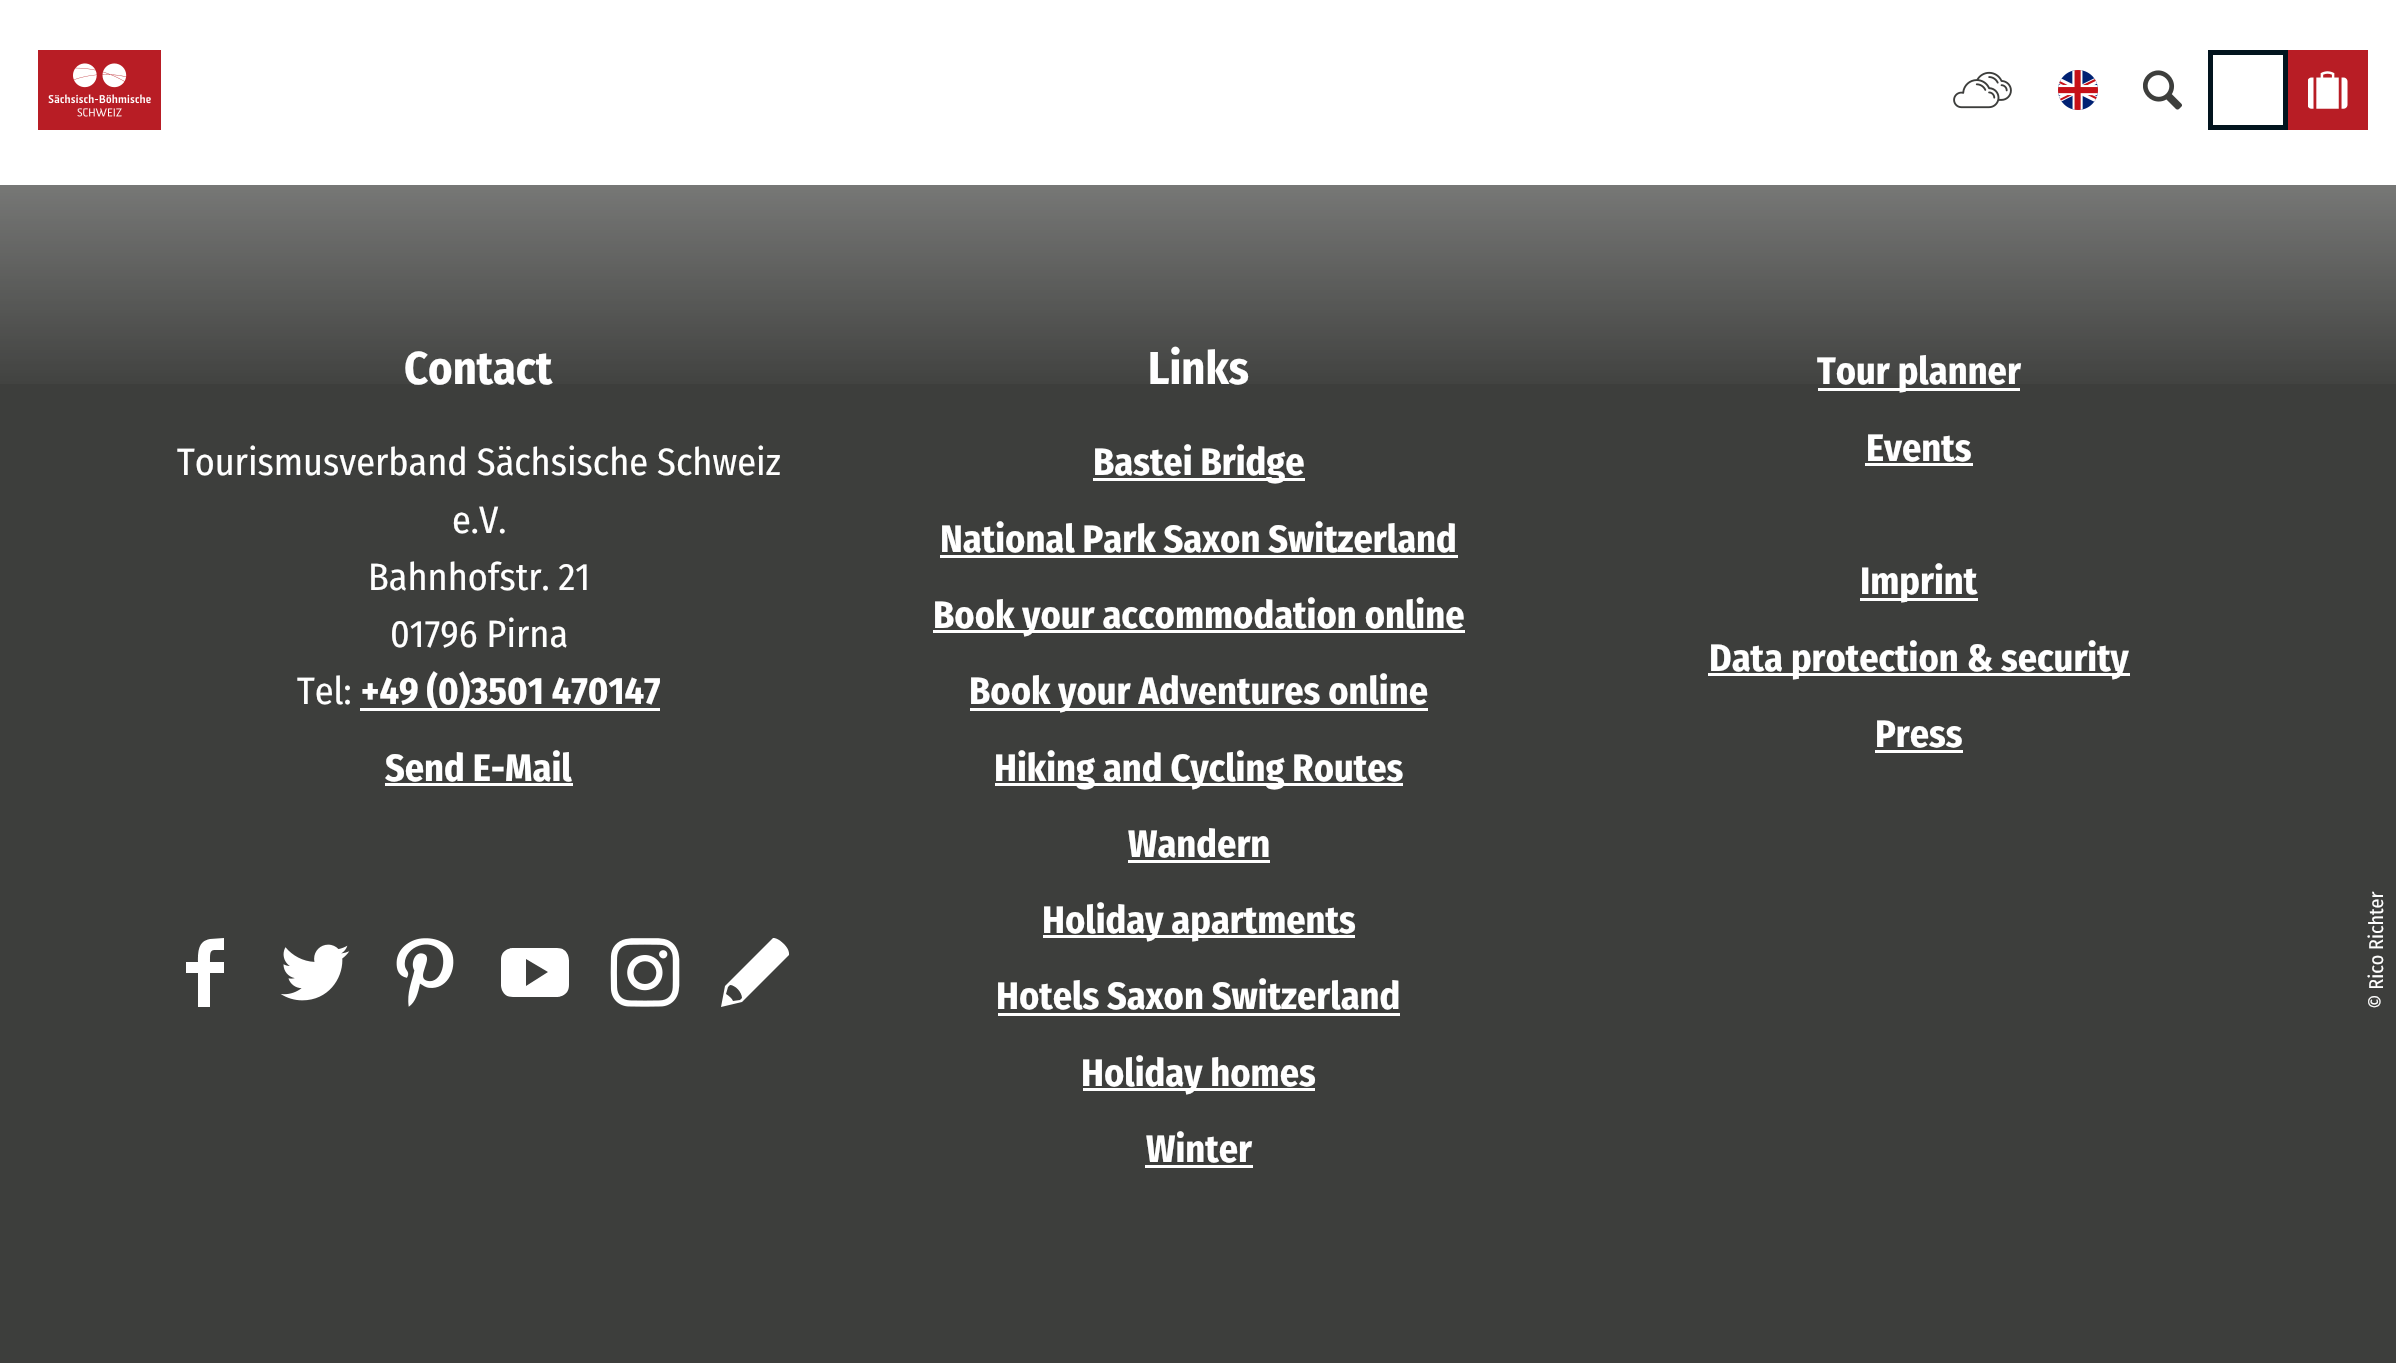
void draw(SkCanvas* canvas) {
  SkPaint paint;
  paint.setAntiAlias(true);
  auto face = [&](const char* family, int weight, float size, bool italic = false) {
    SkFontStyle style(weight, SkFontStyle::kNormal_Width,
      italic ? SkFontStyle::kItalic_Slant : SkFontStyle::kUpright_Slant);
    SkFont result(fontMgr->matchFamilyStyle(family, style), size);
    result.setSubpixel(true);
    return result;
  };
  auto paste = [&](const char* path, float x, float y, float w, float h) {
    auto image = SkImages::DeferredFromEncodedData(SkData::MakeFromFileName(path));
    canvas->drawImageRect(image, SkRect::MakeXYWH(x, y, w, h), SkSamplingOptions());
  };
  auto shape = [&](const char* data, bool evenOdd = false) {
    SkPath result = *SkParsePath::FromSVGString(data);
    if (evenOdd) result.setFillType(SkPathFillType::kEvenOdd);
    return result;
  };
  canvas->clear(0xffffffff);
  paste("img/1.png", 38, 50, 123, 80);
  paste("img/2.png", 1953, 71, 59, 38);
  paste("img/3.png", 2058, 70, 40, 40);
  paste("img/4.png", 2143, 70, 39, 40);
  paint.setStroke(true);
  paint.setStrokeWidth(5);
  paint.setColor(0xff02141e);
  canvas->drawRect(SkRect::MakeXYWH(2210.5f, 52.5f, 75, 75), paint);
  paint.setStroke(false);
  paint.setColor(0xffb81d25);
  canvas->drawRect(SkRect::MakeXYWH(2288, 50, 80, 80), paint);
  paste("img/5.png", 2308, 71, 40, 38);
  {
    const struct { float x, y, w, h; SkColor color; } items[] = {
      {0, 185, 2396, 1178, 0xff3d3e3c},
      {360, 708, 300, 3, 0xffffffff},
      {385, 783, 188, 3, 0xffffffff},
    };
    for (auto [x, y, w, h, color] : items) {
      paint.setColor(color);
      canvas->drawRect(SkRect::MakeXYWH(x, y, w, h), paint);
    }
  }
  canvas->drawPath(shape("M224 950C210 950 210 948 210 962H224V973H210V1007H198V973H186V962H198C198 952 198 941 210 939L224 938Z"), paint);
  paste("img/6.png", 280, 944, 70, 57);
  paste("img/7.png", 396, 938, 58, 69);
  canvas->drawPath(shape("M548 972L526 986V959ZM569 985V960C569 960 569 948 557 948H513C513 948 501 948 501 960V985C501 985 501 997 513 997H557C557 997 569 997 569 985"), paint);
  paste("img/8.png", 610, 938, 70, 69);
  canvas->drawPath(shape("M784 944C777 937 773 938 773 938L725 986L721 1007L742 1002L789 955C789 955 790 950 784 944ZM740 1000L733 1001C732 998 729 996 726 994L728 987L730 985C735 985 742 992 742 998Z"), paint);
  {
    const struct { float x, y, w, h; SkColor color; } items[] = {
      {1093, 478, 212, 3, 0xffffffff},
      {940, 555, 518, 3, 0xffffffff},
      {933, 630, 532, 3, 0xffffffff},
      {970, 708, 458, 3, 0xffffffff},
      {995, 783, 408, 3, 0xffffffff},
      {1128, 860, 142, 3, 0xffffffff},
      {1043, 935, 312, 3, 0xffffffff},
      {998, 1013, 402, 3, 0xffffffff},
      {1083, 1088, 232, 3, 0xffffffff},
      {1145, 1165, 108, 3, 0xffffffff},
      {1818, 388, 202, 3, 0xffffffff},
      {1865, 463, 108, 3, 0xffffffff},
      {1860, 598, 118, 3, 0xffffffff},
      {1708, 673, 422, 3, 0xffffffff},
      {1875, 750, 88, 3, 0xffffffff},
    };
    for (auto [x, y, w, h, color] : items) {
      paint.setColor(color);
      canvas->drawRect(SkRect::MakeXYWH(x, y, w, h), paint);
    }
  }
  auto f0 = face("Fira Sans Condensed", 700, 46);
  canvas->drawString("Contact", 404, 384, f0, paint);
  auto f1 = face("Fira Sans Condensed", 400, 38.1f);
  {
    const struct { const char* s; float x, y; } items[] = {
      {"Tourismusverband Sächsische Schweiz", 177, 475},
      {"e.V.", 452, 533},
      {"Bahnhofstr. 21", 368, 590},
      {"01796 Pirna", 390, 647},
      {"Tel:", 297, 704},
    };
    for (auto [s, x, y] : items) {
      canvas->drawString(s, x, y, f1, paint);
    }
  }
  auto f2 = face("Fira Sans Condensed", 700, 38.1f);
  canvas->drawString("+49 (0)3501 470147", 361, 704, f2, paint);
  canvas->drawString("Send E-Mail", 385, 781, f2, paint);
  canvas->drawString("Links", 1148, 384, f0, paint);
  {
    const struct { const char* s; float x, y; } items[] = {
      {"Bastei Bridge", 1093, 475},
      {"National Park Saxon Switzerland", 940, 552},
      {"Book your accommodation online", 933, 628},
      {"Book your Adventures online", 969, 704},
      {"Hiking and Cycling Routes", 994, 781},
      {"Wandern", 1128, 857},
      {"Holiday apartments", 1042, 933},
      {"Hotels Saxon Switzerland", 996, 1009},
      {"Holiday homes", 1081, 1086},
      {"Winter", 1146, 1162},
      {"Tour planner", 1817, 384},
    };
    for (auto [s, x, y] : items) {
      canvas->drawString(s, x, y, f2, paint);
    }
  }
  {
    const SkColor colors[] = {0x00ffffff, 0x8cffffff};
    const float stops[] = {0, 1};
    const SkPoint ends[] = {{1199, 400}, {1199, 0}};
    paint.setShader(SkGradientShader::MakeLinear(ends, colors, stops, 2, SkTileMode::kClamp));
    paint.setAlpha(255);
  }
  canvas->drawRect(SkRect::MakeXYWH(0, 185, 2396, 199), paint);
  paint.setShader(nullptr);
  paint.setColor(0xffffffff);
  {
    const struct { const char* s; float x, y; } items[] = {
      {"Events", 1866, 461},
      {"Imprint", 1860, 594},
      {"Data protection & security", 1709, 671},
      {"Press", 1875, 747},
    };
    for (auto [s, x, y] : items) {
      canvas->drawString(s, x, y, f2, paint);
    }
  }
  auto f3 = face("Fira Sans Condensed", 400, 20);
  canvas->save();
  canvas->rotate(-90, 2383, 1009);
  canvas->drawString("© Rico Richter", 2383, 1009, f3, paint);
  canvas->restore();
}
